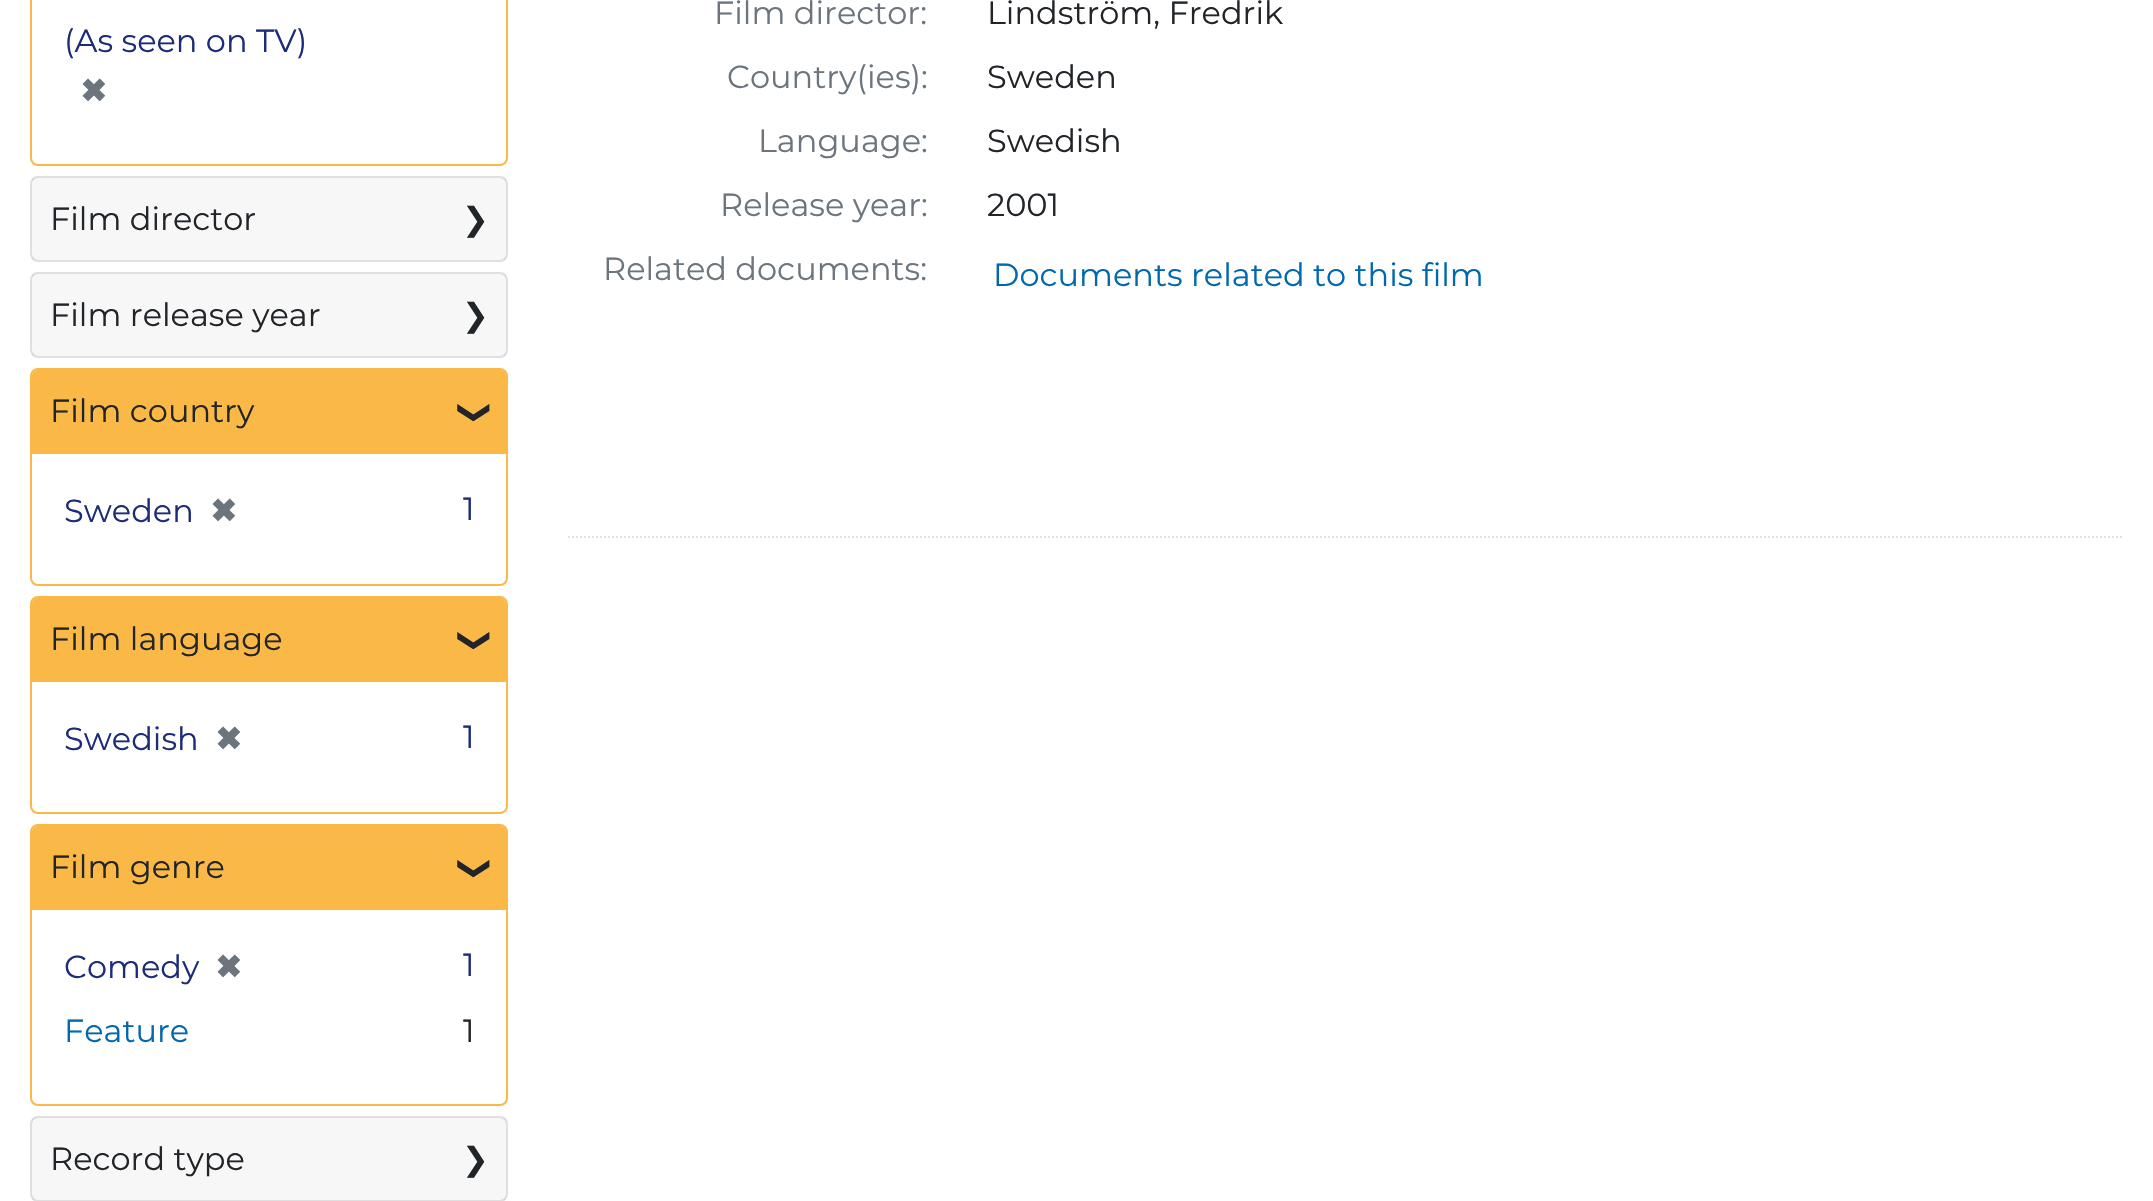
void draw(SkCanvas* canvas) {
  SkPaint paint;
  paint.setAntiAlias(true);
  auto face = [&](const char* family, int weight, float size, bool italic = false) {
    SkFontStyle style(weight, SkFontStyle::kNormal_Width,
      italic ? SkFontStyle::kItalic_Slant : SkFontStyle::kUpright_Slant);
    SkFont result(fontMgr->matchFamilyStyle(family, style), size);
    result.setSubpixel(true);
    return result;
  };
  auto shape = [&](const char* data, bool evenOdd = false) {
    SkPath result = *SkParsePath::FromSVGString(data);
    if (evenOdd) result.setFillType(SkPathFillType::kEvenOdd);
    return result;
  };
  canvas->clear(0xffffffff);
  paint.setStroke(true);
  paint.setStrokeWidth(2);
  paint.setColor(0xfffab946);
  canvas->drawRoundRect(SkRect::MakeXYWH(31, -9, 476, 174), 7, 7, paint);
  paint.setColor(0xffdfdfdf);
  canvas->drawRoundRect(SkRect::MakeXYWH(31, 177, 476, 84), 7, 7, paint);
  paint.setStroke(false);
  paint.setColor(0x08000000);
  canvas->drawRect(SkRect::MakeXYWH(32, 178, 474, 82), paint);
  paint.setStroke(true);
  paint.setColor(0xffdfdfdf);
  canvas->drawRoundRect(SkRect::MakeXYWH(31, 273, 476, 84), 7, 7, paint);
  paint.setStroke(false);
  paint.setColor(0x08000000);
  canvas->drawRect(SkRect::MakeXYWH(32, 274, 474, 82), paint);
  paint.setStroke(true);
  paint.setColor(0xfffab946);
  canvas->drawRoundRect(SkRect::MakeXYWH(31, 369, 476, 216), 7, 7, paint);
  paint.setStroke(false);
  canvas->drawPath(shape("M38 370H500C503.5 370 506 372.5 506 376V454H32V376C32 372.5 34.5 370 38 370Z"), paint);
  paint.setStroke(true);
  canvas->drawRoundRect(SkRect::MakeXYWH(31, 597, 476, 216), 7, 7, paint);
  paint.setStroke(false);
  canvas->drawPath(shape("M38 598H500C503.5 598 506 600.5 506 604V682H32V604C32 600.5 34.5 598 38 598Z"), paint);
  paint.setStroke(true);
  canvas->drawRoundRect(SkRect::MakeXYWH(31, 825, 476, 280), 7, 7, paint);
  paint.setStroke(false);
  canvas->drawPath(shape("M38 826H500C503.5 826 506 828.5 506 832V910H32V832C32 828.5 34.5 826 38 826Z"), paint);
  paint.setStroke(true);
  paint.setColor(0xffdfdfdf);
  canvas->drawRoundRect(SkRect::MakeXYWH(31, 1117, 476, 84), 7, 7, paint);
  paint.setStroke(false);
  paint.setColor(0x08000000);
  canvas->drawRect(SkRect::MakeXYWH(32, 1118, 474, 82), paint);
  paint.setStroke(true);
  paint.setColor(0xffdee2e6);
  paint.setPathEffect(SkDashPathEffect::Make({{2, 2}}, 0));
  canvas->drawPath(shape("M568 537H2124"), paint);
  paint.setPathEffect(nullptr);
  auto f0 = face("Montserrat", 400, 32);
  paint.setStroke(false);
  paint.setColor(0xff1d2c78);
  canvas->drawString("(As seen on TV)", 64, 52, f0, paint);
  auto f1 = face("DejaVu Sans", 700, 32);
  paint.setColor(0xff6c757d);
  canvas->drawString("✖", 80, 102, f1, paint);
  paint.setColor(0xff212529);
  canvas->drawString("Film director", 50, 230, f0, paint);
  auto f2 = face("DejaVu Sans", 400, 32);
  canvas->drawString("❯", 462, 230, f2, paint);
  canvas->drawString("Film release year", 50, 326, f0, paint);
  canvas->drawString("❯", 462, 326, f2, paint);
  canvas->drawString("Film country", 50, 422, f0, paint);
  canvas->save();
  canvas->rotate(90, 465, 399);
  canvas->drawString("❯", 465, 399, f2, paint);
  canvas->restore();
  paint.setColor(0xff1d2c78);
  canvas->drawString("Sweden", 64, 522, f0, paint);
  paint.setColor(0xff6c757d);
  canvas->drawString("✖", 210, 522, f1, paint);
  paint.setColor(0xff1d2c78);
  canvas->drawString("1", 463, 520, f0, paint);
  paint.setColor(0xff212529);
  canvas->drawString("Film language", 50, 650, f0, paint);
  canvas->save();
  canvas->rotate(90, 465, 627);
  canvas->drawString("❯", 465, 627, f2, paint);
  canvas->restore();
  paint.setColor(0xff1d2c78);
  canvas->drawString("Swedish", 64, 750, f0, paint);
  paint.setColor(0xff6c757d);
  canvas->drawString("✖", 215, 750, f1, paint);
  paint.setColor(0xff1d2c78);
  canvas->drawString("1", 463, 748, f0, paint);
  paint.setColor(0xff212529);
  canvas->drawString("Film genre", 50, 878, f0, paint);
  canvas->save();
  canvas->rotate(90, 465, 855);
  canvas->drawString("❯", 465, 855, f2, paint);
  canvas->restore();
  paint.setColor(0xff1d2c78);
  canvas->drawString("Comedy", 64, 978, f0, paint);
  paint.setColor(0xff6c757d);
  canvas->drawString("✖", 215, 978, f1, paint);
  paint.setColor(0xff1d2c78);
  canvas->drawString("1", 463, 976, f0, paint);
  paint.setColor(0xff0068af);
  canvas->drawString("Feature", 64, 1042, f0, paint);
  paint.setColor(0xff212529);
  canvas->drawString("1", 463, 1042, f0, paint);
  canvas->drawString("Record type", 50, 1170, f0, paint);
  canvas->drawString("❯", 462, 1170, f2, paint);
  paint.setColor(0xff6c757d);
  canvas->drawString("Film director:", 714, 24, f0, paint);
  paint.setColor(0xff212529);
  canvas->drawString("Lindström, Fredrik", 987, 24, f0, paint);
  paint.setColor(0xff6c757d);
  canvas->drawString("Country(ies):", 727, 88, f0, paint);
  paint.setColor(0xff212529);
  canvas->drawString("Sweden", 987, 88, f0, paint);
  paint.setColor(0xff6c757d);
  canvas->drawString("Language:", 758, 152, f0, paint);
  paint.setColor(0xff212529);
  canvas->drawString("Swedish", 987, 152, f0, paint);
  paint.setColor(0xff6c757d);
  canvas->drawString("Release year:", 720, 216, f0, paint);
  paint.setColor(0xff212529);
  canvas->drawString("2001", 987, 216, f0, paint);
  paint.setColor(0xff6c757d);
  canvas->drawString("Related documents:", 603, 280, f0, paint);
  paint.setColor(0xff0068af);
  canvas->drawString("Documents related to this film", 993, 286, f0, paint);
}
